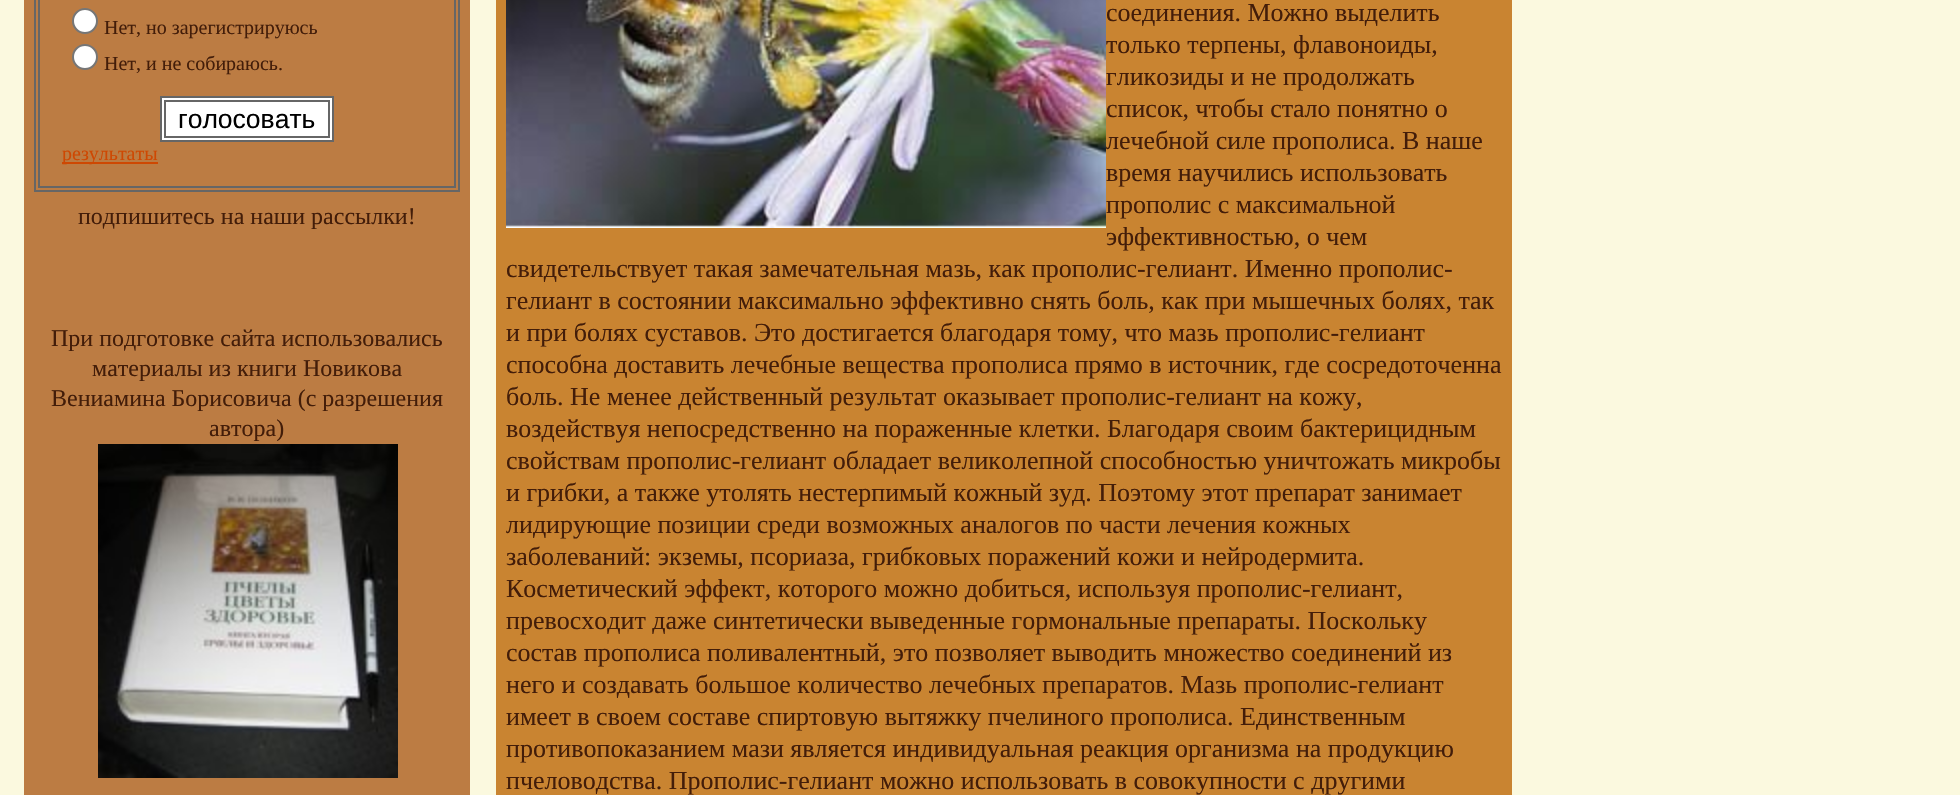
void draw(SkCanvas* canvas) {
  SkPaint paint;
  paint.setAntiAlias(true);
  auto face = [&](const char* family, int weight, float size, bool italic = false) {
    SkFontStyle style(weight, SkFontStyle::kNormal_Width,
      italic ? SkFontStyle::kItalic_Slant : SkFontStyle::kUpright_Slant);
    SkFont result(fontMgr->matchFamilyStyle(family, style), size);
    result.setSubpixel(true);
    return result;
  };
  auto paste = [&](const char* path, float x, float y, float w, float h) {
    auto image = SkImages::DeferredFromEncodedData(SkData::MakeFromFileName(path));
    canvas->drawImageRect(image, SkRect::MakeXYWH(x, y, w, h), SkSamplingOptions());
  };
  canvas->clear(0xfffbf9df);
  paint.setColor(0xffbc7c43);
  canvas->drawRect(SkRect::MakeXYWH(24, 0, 446, 795), paint);
  paint.setStroke(true);
  paint.setStrokeWidth(2);
  paint.setColor(0xff666666);
  canvas->drawRect(SkRect::MakeXYWH(35, -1, 424, 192), paint);
  canvas->drawRect(SkRect::MakeXYWH(39, -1, 416, 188), paint);
  paint.setStroke(false);
  paint.setColor(0xffffffff);
  canvas->drawCircle(85, 21, 12, paint);
  paint.setStroke(true);
  paint.setColor(0xff767676);
  canvas->drawCircle(85, 21, 12, paint);
  paint.setStroke(false);
  paint.setColor(0xffffffff);
  canvas->drawCircle(85, 57, 12, paint);
  paint.setStroke(true);
  paint.setColor(0xff767676);
  canvas->drawCircle(85, 57, 12, paint);
  paint.setStroke(false);
  paint.setColor(0xffffffff);
  canvas->drawRect(SkRect::MakeXYWH(161, 97, 172, 44), paint);
  paint.setStroke(true);
  paint.setColor(0xff666666);
  canvas->drawRect(SkRect::MakeXYWH(161, 97, 172, 44), paint);
  canvas->drawRect(SkRect::MakeXYWH(165, 101, 164, 36), paint);
  paint.setStroke(false);
  paint.setColor(0xffce4802);
  canvas->drawRect(SkRect::MakeXYWH(62, 162, 96, 2), paint);
  paste("img/1.png", 98, 444, 300, 334);
  paint.setColor(0xffc98431);
  canvas->drawRect(SkRect::MakeXYWH(496, 0, 1016, 795), paint);
  paste("img/2.png", 506, 0, 600, 228);
  auto f0 = face("Liberation Serif", 400, 20);
  paint.setColor(0xff431d09);
  canvas->drawString("Нет, но зарегистрируюсь", 104, 34, f0, paint);
  canvas->drawString("Нет, и не собираюсь.", 104, 70, f0, paint);
  auto f1 = face("Liberation Sans", 400, 26.5f);
  paint.setColor(0xff000000);
  canvas->drawString("голосовать", 178, 128, f1, paint);
  paint.setColor(0xffce4802);
  canvas->drawString("результаты", 62, 160, f0, paint);
  auto f2 = face("Liberation Serif", 400, 24);
  paint.setColor(0xff431d09);
  {
    const struct { const char* s; float x, y; } items[] = {
      {"подпишитесь на наши рассылки!", 78, 224},
      {"При подготовке сайта использовались", 51, 346},
      {"материалы из книги Новикова", 92, 376},
      {"Вениамина Борисовича (с разрешения", 51, 406},
      {"автора)", 209, 436},
    };
    for (auto [s, x, y] : items) {
      canvas->drawString(s, x, y, f2, paint);
    }
  }
  auto f3 = face("Liberation Serif", 400, 26);
  {
    const struct { const char* s; float x, y; } items[] = {
      {"соединения. Можно выделить", 1106, 21},
      {"только терпены, флавоноиды,", 1106, 53},
      {"гликозиды и не продолжать", 1106, 85},
      {"список, чтобы стало понятно о", 1106, 117},
      {"лечебной силе прополиса. В наше", 1106, 149},
      {"время научились использовать", 1106, 181},
      {"прополис с максимальной", 1106, 213},
      {"эффективностью, о чем", 1106, 245},
      {"свидетельствует такая замечательная мазь, как прополис-гелиант. Именно прополис-", 506, 277},
      {"гелиант в состоянии максимально эффективно снять боль, как при мышечных болях, так", 506, 309},
      {"и при болях суставов. Это достигается благодаря тому, что мазь прополис-гелиант", 506, 341},
      {"способна доставить лечебные вещества прополиса прямо в источник, где сосредоточенна", 506, 373},
      {"боль. Не менее действенный результат оказывает прополис-гелиант на кожу,", 506, 405},
      {"воздействуя непосредственно на пораженные клетки. Благодаря своим бактерицидным", 506, 437},
      {"свойствам прополис-гелиант обладает великолепной способностью уничтожать микробы", 506, 469},
      {"и грибки, а также утолять нестерпимый кожный зуд. Поэтому этот препарат занимает", 506, 501},
      {"лидирующие позиции среди возможных аналогов по части лечения кожных", 506, 533},
      {"заболеваний: экземы, псориаза, грибковых поражений кожи и нейродермита.", 506, 565},
      {"Косметический эффект, которого можно добиться, используя прополис-гелиант,", 506, 597},
      {"превосходит даже синтетически выведенные гормональные препараты. Поскольку", 506, 629},
      {"состав прополиса поливалентный, это позволяет выводить множество соединений из", 506, 661},
      {"него и создавать большое количество лечебных препаратов. Мазь прополис-гелиант", 506, 693},
      {"имеет в своем составе спиртовую вытяжку пчелиного прополиса. Единственным", 506, 725},
      {"противопоказанием мази является индивидуальная реакция организма на продукцию", 506, 757},
      {"пчеловодства. Прополис-гелиант можно использовать в совокупности с другими", 506, 789},
    };
    for (auto [s, x, y] : items) {
      canvas->drawString(s, x, y, f3, paint);
    }
  }
}
